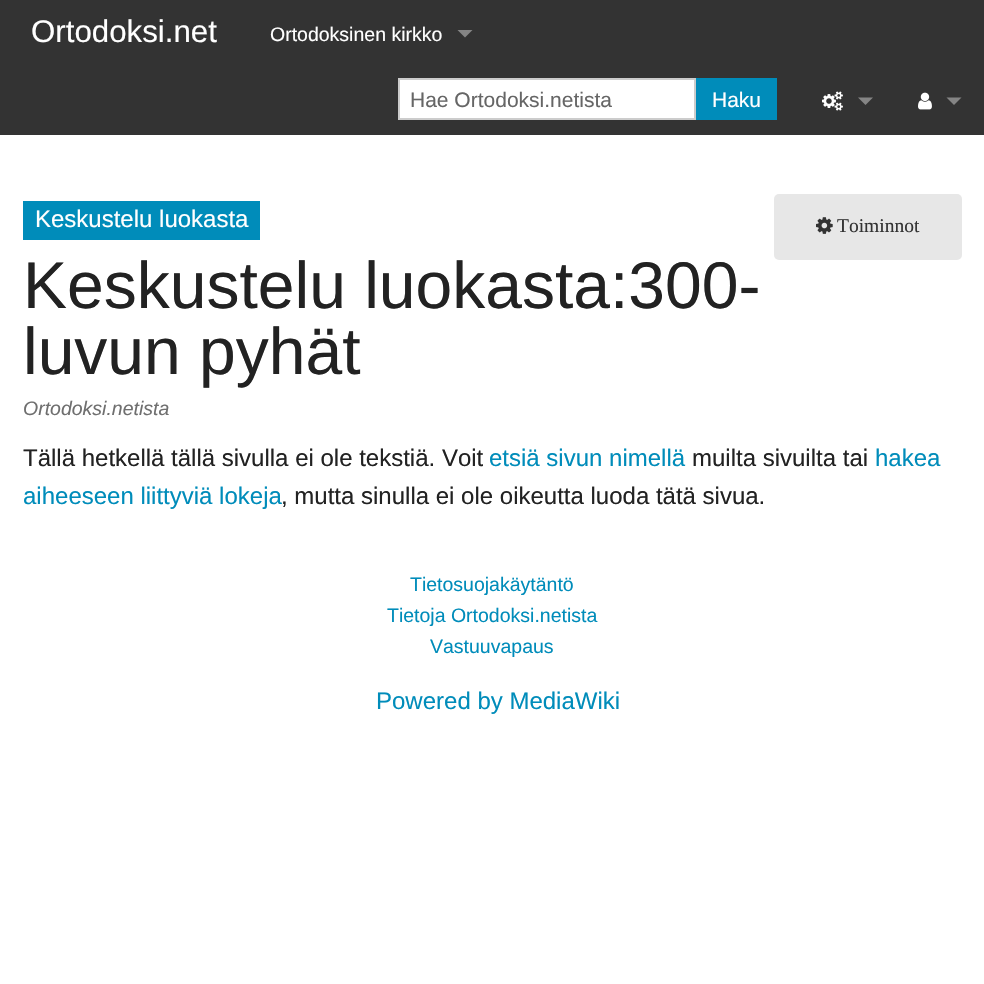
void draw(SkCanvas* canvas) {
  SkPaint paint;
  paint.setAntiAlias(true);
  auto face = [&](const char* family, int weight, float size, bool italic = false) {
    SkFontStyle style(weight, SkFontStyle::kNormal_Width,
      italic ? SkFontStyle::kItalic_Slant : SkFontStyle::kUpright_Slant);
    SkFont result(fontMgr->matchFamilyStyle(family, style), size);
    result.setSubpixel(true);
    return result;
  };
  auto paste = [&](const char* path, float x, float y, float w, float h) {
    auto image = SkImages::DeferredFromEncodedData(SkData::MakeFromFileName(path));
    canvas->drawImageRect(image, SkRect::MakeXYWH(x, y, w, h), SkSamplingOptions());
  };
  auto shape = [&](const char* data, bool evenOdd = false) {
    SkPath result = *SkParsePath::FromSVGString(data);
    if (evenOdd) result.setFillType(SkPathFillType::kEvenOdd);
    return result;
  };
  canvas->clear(0xffffffff);
  paint.setColor(0xff333333);
  canvas->drawRect(SkRect::MakeXYWH(0, 0, 984, 135), paint);
  paint.setColor(0xff858585);
  canvas->drawPath(shape("M457.5 30H472.5L465 37.5Z"), paint);
  paint.setColor(0xffffffff);
  canvas->drawRect(SkRect::MakeXYWH(399, 79, 296, 40), paint);
  paint.setStroke(true);
  paint.setStrokeWidth(2);
  paint.setColor(0xffcccccc);
  canvas->drawRect(SkRect::MakeXYWH(399, 79, 296, 40), paint);
  paint.setStroke(false);
  paint.setColor(0xff008cba);
  canvas->drawRect(SkRect::MakeXYWH(696, 78, 81, 42), paint);
  paste("img/1.png", 822, 91, 21, 20);
  paint.setColor(0xff858585);
  canvas->drawPath(shape("M858 97.5H873L865.5 105Z"), paint);
  paste("img/2.png", 918, 92, 14, 18);
  canvas->drawPath(shape("M946.5 97.5H961.5L954 105Z"), paint);
  paint.setColor(0xff008cba);
  canvas->drawRect(SkRect::MakeXYWH(23, 201, 237, 39), paint);
  paint.setColor(0xffe7e7e7);
  canvas->drawRoundRect(SkRect::MakeXYWH(774, 194, 188, 66), 5, 5, paint);
  paste("img/3.png", 816, 217, 17, 17);
  auto f0 = face("Liberation Sans", 400, 31.25f);
  paint.setColor(0xffffffff);
  canvas->drawString("Ortodoksi.net", 31, 42, f0, paint);
  auto f1 = face("Liberation Sans", 400, 19.5f);
  canvas->drawString("Ortodoksinen kirkko", 270, 41, f1, paint);
  auto f2 = face("Liberation Sans", 400, 21);
  paint.setColor(0xff666666);
  canvas->drawString("Hae Ortodoksi.netista", 410, 107, f2, paint);
  paint.setColor(0xffffffff);
  canvas->drawString("Haku", 712, 107, f2, paint);
  auto f3 = face("Liberation Sans", 400, 24);
  canvas->drawString("Keskustelu luokasta", 35, 227, f3, paint);
  auto f4 = face("Liberation Serif", 400, 19.5f);
  paint.setColor(0xff333333);
  canvas->drawString("Toiminnot", 837, 232, f4, paint);
  auto f5 = face("Liberation Sans", 400, 66);
  paint.setColor(0xff222222);
  canvas->drawString("Keskustelu luokasta:300-", 23, 308, f5, paint);
  canvas->drawString("luvun pyhät", 23, 374, f5, paint);
  auto f6 = face("Liberation Sans", 400, 19.5f, true);
  paint.setColor(0xff6f6f6f);
  canvas->drawString("Ortodoksi.netista", 23, 415, f6, paint);
  paint.setColor(0xff222222);
  canvas->drawString("Tällä hetkellä tällä sivulla ei ole tekstiä. Voit", 23, 466, f3, paint);
  paint.setColor(0xff008cba);
  canvas->drawString("etsiä sivun nimellä", 489, 466, f3, paint);
  paint.setColor(0xff222222);
  canvas->drawString("muilta sivuilta tai", 692, 466, f3, paint);
  paint.setColor(0xff008cba);
  canvas->drawString("hakea", 875, 466, f3, paint);
  canvas->drawString("aiheeseen liittyviä lokeja", 23, 504, f3, paint);
  paint.setColor(0xff222222);
  canvas->drawString(", mutta sinulla ei ole oikeutta luoda tätä sivua.", 281, 504, f3, paint);
  paint.setColor(0xff008cba);
  {
    const struct { const char* s; float x, y; } items[] = {
      {"Tietosuojakäytäntö", 410, 591},
      {"Tietoja Ortodoksi.netista", 387, 622},
      {"Vastuuvapaus", 430, 653},
    };
    for (auto [s, x, y] : items) {
      canvas->drawString(s, x, y, f1, paint);
    }
  }
  canvas->drawString("Powered by MediaWiki", 376, 709, f3, paint);
}
